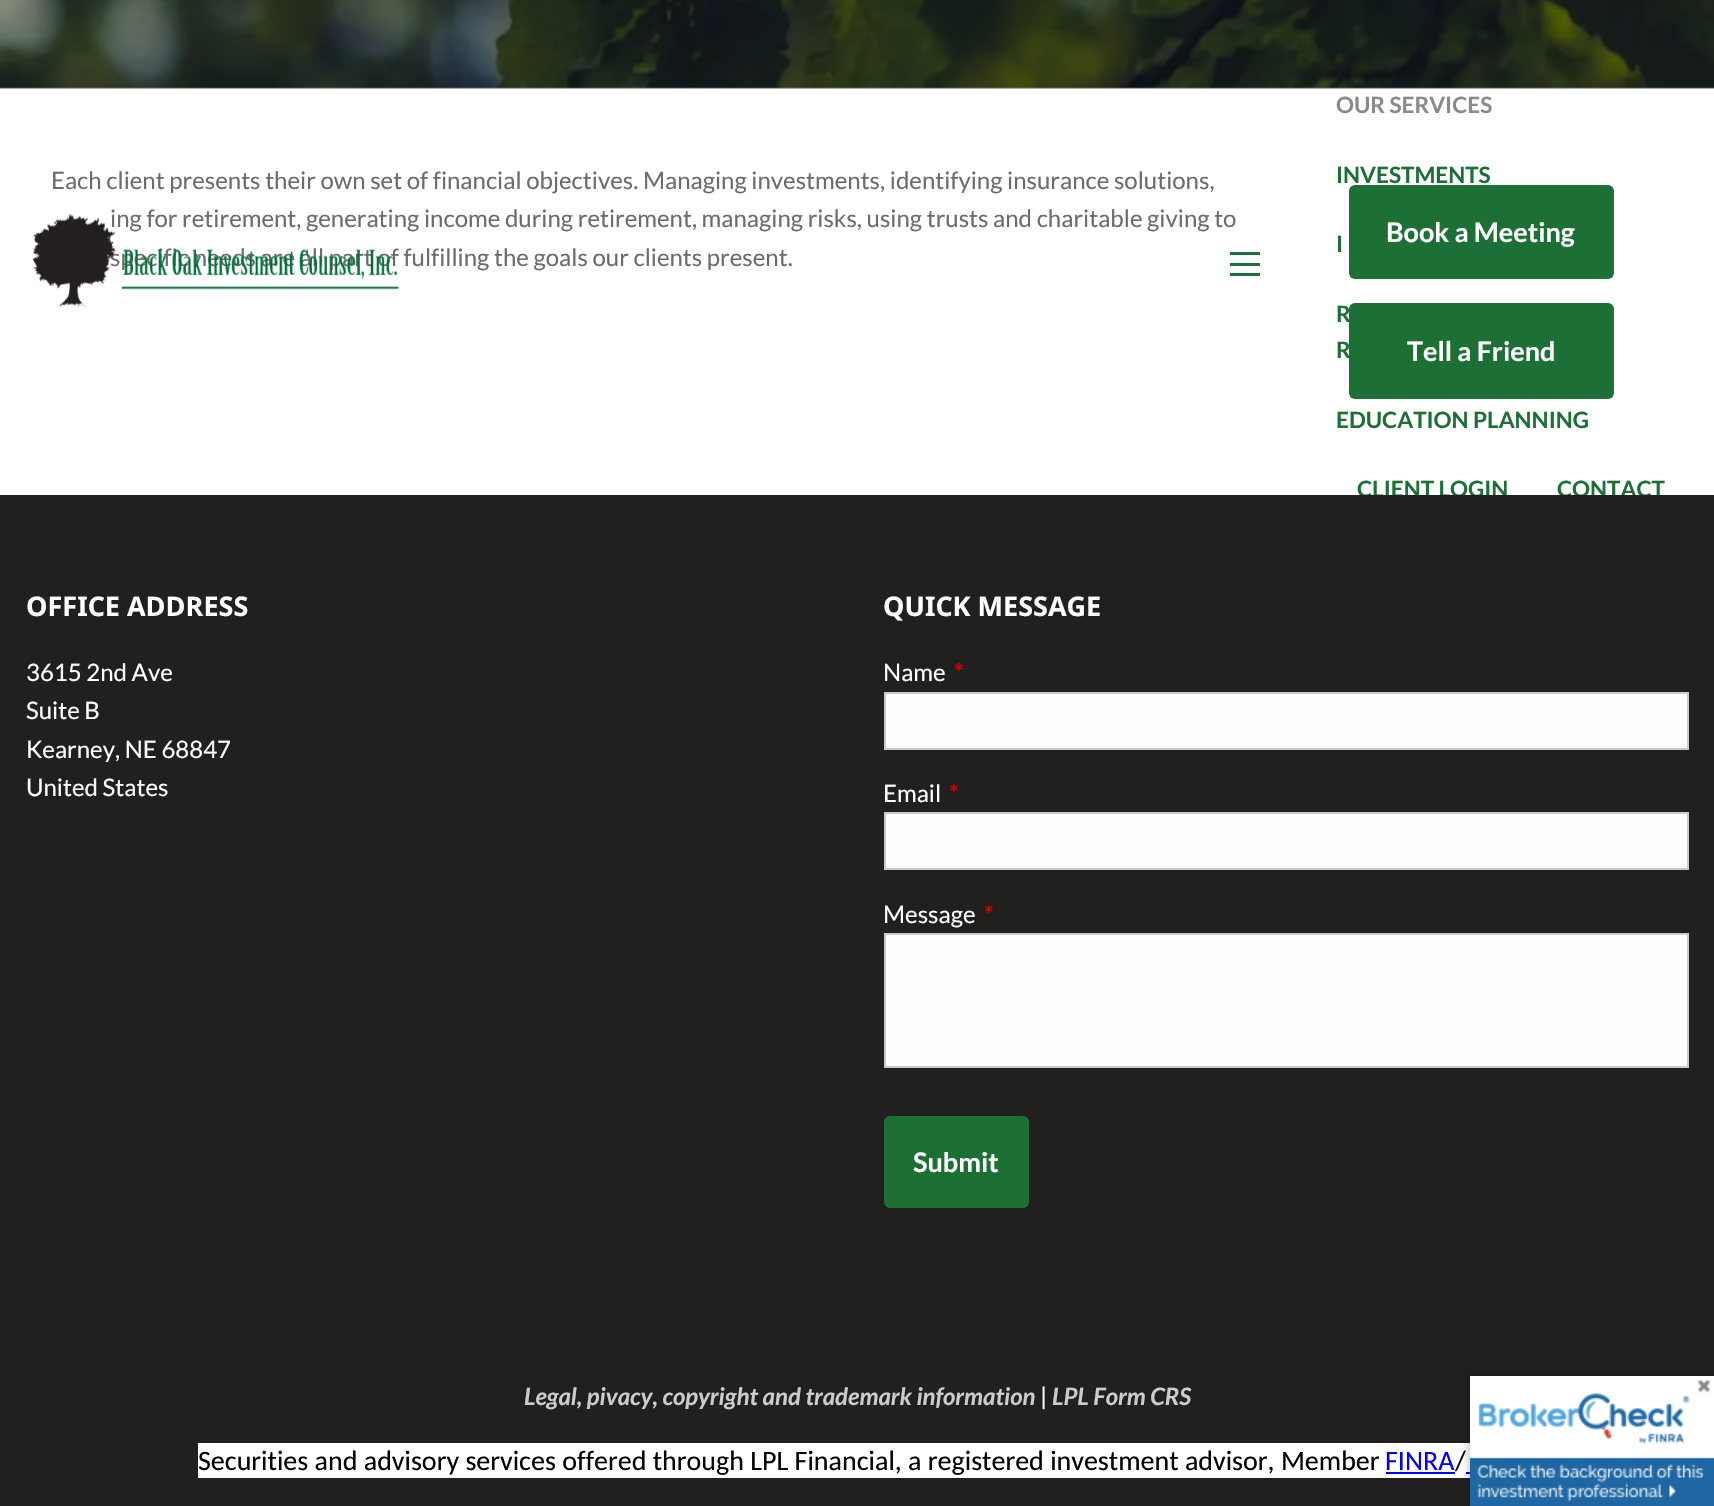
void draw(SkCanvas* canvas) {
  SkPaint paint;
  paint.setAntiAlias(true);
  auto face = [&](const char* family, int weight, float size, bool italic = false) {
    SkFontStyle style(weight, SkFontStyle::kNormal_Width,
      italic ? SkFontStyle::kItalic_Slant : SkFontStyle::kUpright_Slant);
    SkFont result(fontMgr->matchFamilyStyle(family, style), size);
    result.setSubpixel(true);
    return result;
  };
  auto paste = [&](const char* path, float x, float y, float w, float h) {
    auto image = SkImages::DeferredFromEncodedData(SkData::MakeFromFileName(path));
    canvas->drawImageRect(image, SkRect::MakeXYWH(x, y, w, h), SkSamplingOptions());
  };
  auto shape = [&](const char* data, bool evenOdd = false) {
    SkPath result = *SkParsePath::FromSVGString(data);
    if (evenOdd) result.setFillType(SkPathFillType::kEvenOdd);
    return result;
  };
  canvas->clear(0xffffffff);
  paint.setColor(0xffababab);
  canvas->drawRect(SkRect::MakeXYWH(0, 87, 1714, 2), paint);
  paste("img/1.png", 0, 0, 1714, 88);
  {
    const struct { float x, y, w, h; SkColor color; } items[] = {
      {1230, 273, 30, 3, 0xff1c7035},
      {1230, 263, 30, 3, 0xff1c7035},
      {1230, 252, 30, 3, 0xff1c7035},
    };
    for (auto [x, y, w, h, color] : items) {
      paint.setColor(color);
      canvas->drawRect(SkRect::MakeXYWH(x, y, w, h), paint);
    }
  }
  canvas->drawRoundRect(SkRect::MakeXYWH(1349, 185, 265, 94), 6, 6, paint);
  canvas->drawRoundRect(SkRect::MakeXYWH(1349, 303, 265, 96), 6, 6, paint);
  {
    const struct { float x, y, w, h; SkColor color; } items[] = {
      {0, 1280, 1714, 226, 0xff221f1f},
      {198, 1443, 1272, 35, 0xffffffff},
      {1386, 1472, 69, 2, 0xff0000ff},
      {1466, 1472, 4, 2, 0xff0000ff},
      {1470, 1376, 244, 83, 0xffffffff},
    };
    for (auto [x, y, w, h, color] : items) {
      paint.setColor(color);
      canvas->drawRect(SkRect::MakeXYWH(x, y, w, h), paint);
    }
  }
  canvas->save();
  canvas->clipPath(shape("M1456 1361H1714V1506H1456ZM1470 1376H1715V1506H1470Z", true), true);
  paint.setColor(0x40000000);
  paint.setMaskFilter(SkMaskFilter::MakeBlur(kNormal_SkBlurStyle, 4));
  canvas->drawRect(SkRect::MakeXYWH(1469, 1374, 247, 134), paint);
  paint.setMaskFilter(nullptr);
  canvas->restore();
  paste("img/3.png", 1470, 1379, 244, 127);
  auto f0 = face("Lato", 700, 22.5f);
  paint.setColor(0xff8a8a8a);
  canvas->drawString("OUR SERVICES", 1336, 113, f0, paint);
  paint.setColor(0xff1c7035);
  {
    const struct { const char* s; float x, y; } items[] = {
      {"INVESTMENTS", 1336, 183},
      {"I", 1336, 252},
      {"R", 1336, 322},
      {"R", 1336, 358},
      {"EDUCATION PLANNING", 1336, 428},
      {"CLIENT LOGIN", 1357, 497},
      {"CONTACT", 1557, 497},
    };
    for (auto [s, x, y] : items) {
      canvas->drawString(s, x, y, f0, paint);
    }
  }
  auto f1 = face("Lato", 400, 24);
  paint.setColor(0xff6d6c6c);
  {
    const struct { const char* s; float x, y; } items[] = {
      {"Each client presents their own set of financial objectives. Managing investments, identifying insurance solutions,", 51, 189},
      {"ing for retirement, generating income during retirement, managing risks, using trusts and charitable giving to", 110, 227},
      {"specific needs are all part of fulfilling the goals our clients present.", 110, 266},
    };
    for (auto [s, x, y] : items) {
      canvas->drawString(s, x, y, f1, paint);
    }
  }
  paste("img/2.png", 32, 213, 367, 94);
  auto f2 = face("Lato", 700, 27);
  paint.setColor(0xffffffff);
  canvas->drawString("Book a Meeting", 1386, 242, f2, paint);
  canvas->drawString("Tell a Friend", 1407, 361, f2, paint);
  paint.setColor(0xff221f1f);
  canvas->drawRect(SkRect::MakeXYWH(0, 495, 1714, 785), paint);
  auto f3 = face("Noto Sans", 700, 27);
  paint.setColor(0xffffffff);
  canvas->drawString("OFFICE ADDRESS", 26, 616, f3, paint);
  {
    const struct { const char* s; float x, y; } items[] = {
      {"3615 2nd Ave", 26, 681},
      {"Suite B", 26, 719},
      {"Kearney, NE 68847", 26, 758},
      {"United States", 26, 796},
    };
    for (auto [s, x, y] : items) {
      canvas->drawString(s, x, y, f1, paint);
    }
  }
  canvas->drawString("QUICK MESSAGE", 883, 616, f3, paint);
  canvas->drawString("Name", 883, 681, f1, paint);
  auto f4 = face("Lato", 700, 24);
  paint.setColor(0xffcc0000);
  canvas->drawString("*", 954, 681, f4, paint);
  paint.setColor(0xfffefefe);
  canvas->drawRect(SkRect::MakeXYWH(885, 693, 803, 56), paint);
  paint.setStroke(true);
  paint.setStrokeWidth(2);
  paint.setColor(0xffcacaca);
  canvas->drawRect(SkRect::MakeXYWH(885, 693, 803, 56), paint);
  paint.setStroke(false);
  paint.setColor(0xffffffff);
  canvas->drawString("Email", 883, 802, f1, paint);
  paint.setColor(0xffcc0000);
  canvas->drawString("*", 949, 802, f4, paint);
  paint.setColor(0xfffefefe);
  canvas->drawRect(SkRect::MakeXYWH(885, 813, 803, 56), paint);
  paint.setStroke(true);
  paint.setColor(0xffcacaca);
  canvas->drawRect(SkRect::MakeXYWH(885, 813, 803, 56), paint);
  paint.setStroke(false);
  paint.setColor(0xffffffff);
  canvas->drawString("Message", 883, 923, f1, paint);
  paint.setColor(0xffcc0000);
  canvas->drawString("*", 984, 923, f4, paint);
  paint.setColor(0xfffefefe);
  canvas->drawRect(SkRect::MakeXYWH(885, 934, 803, 133), paint);
  paint.setStroke(true);
  paint.setColor(0xffcacaca);
  canvas->drawRect(SkRect::MakeXYWH(885, 934, 803, 133), paint);
  paint.setStroke(false);
  paint.setColor(0xff1c7035);
  canvas->drawRoundRect(SkRect::MakeXYWH(884, 1116, 145, 92), 6, 6, paint);
  paint.setColor(0xffffffff);
  canvas->drawString("Submit", 913, 1172, f2, paint);
  auto f5 = face("Lato", 700, 24, true);
  paint.setColor(0xffcccccc);
  canvas->drawString("Legal, pivacy, copyright and trademark information", 524, 1405, f5, paint);
  paint.setColor(0xffffffff);
  canvas->drawString("|", 1040, 1405, f1, paint);
  paint.setColor(0xffcccccc);
  canvas->drawString("LPL Form CRS", 1052, 1405, f5, paint);
  auto f6 = face("Carlito", 400, 28);
  paint.setColor(0xff000000);
  canvas->drawString("Securities and advisory services offered through LPL Financial, a registered investment advisor, Member", 198, 1470, f6, paint);
  paint.setColor(0xff0000ff);
  canvas->drawString("FINRA", 1385, 1470, f6, paint);
  paint.setColor(0xff000000);
  canvas->drawString("/", 1455, 1470, f6, paint);
}
